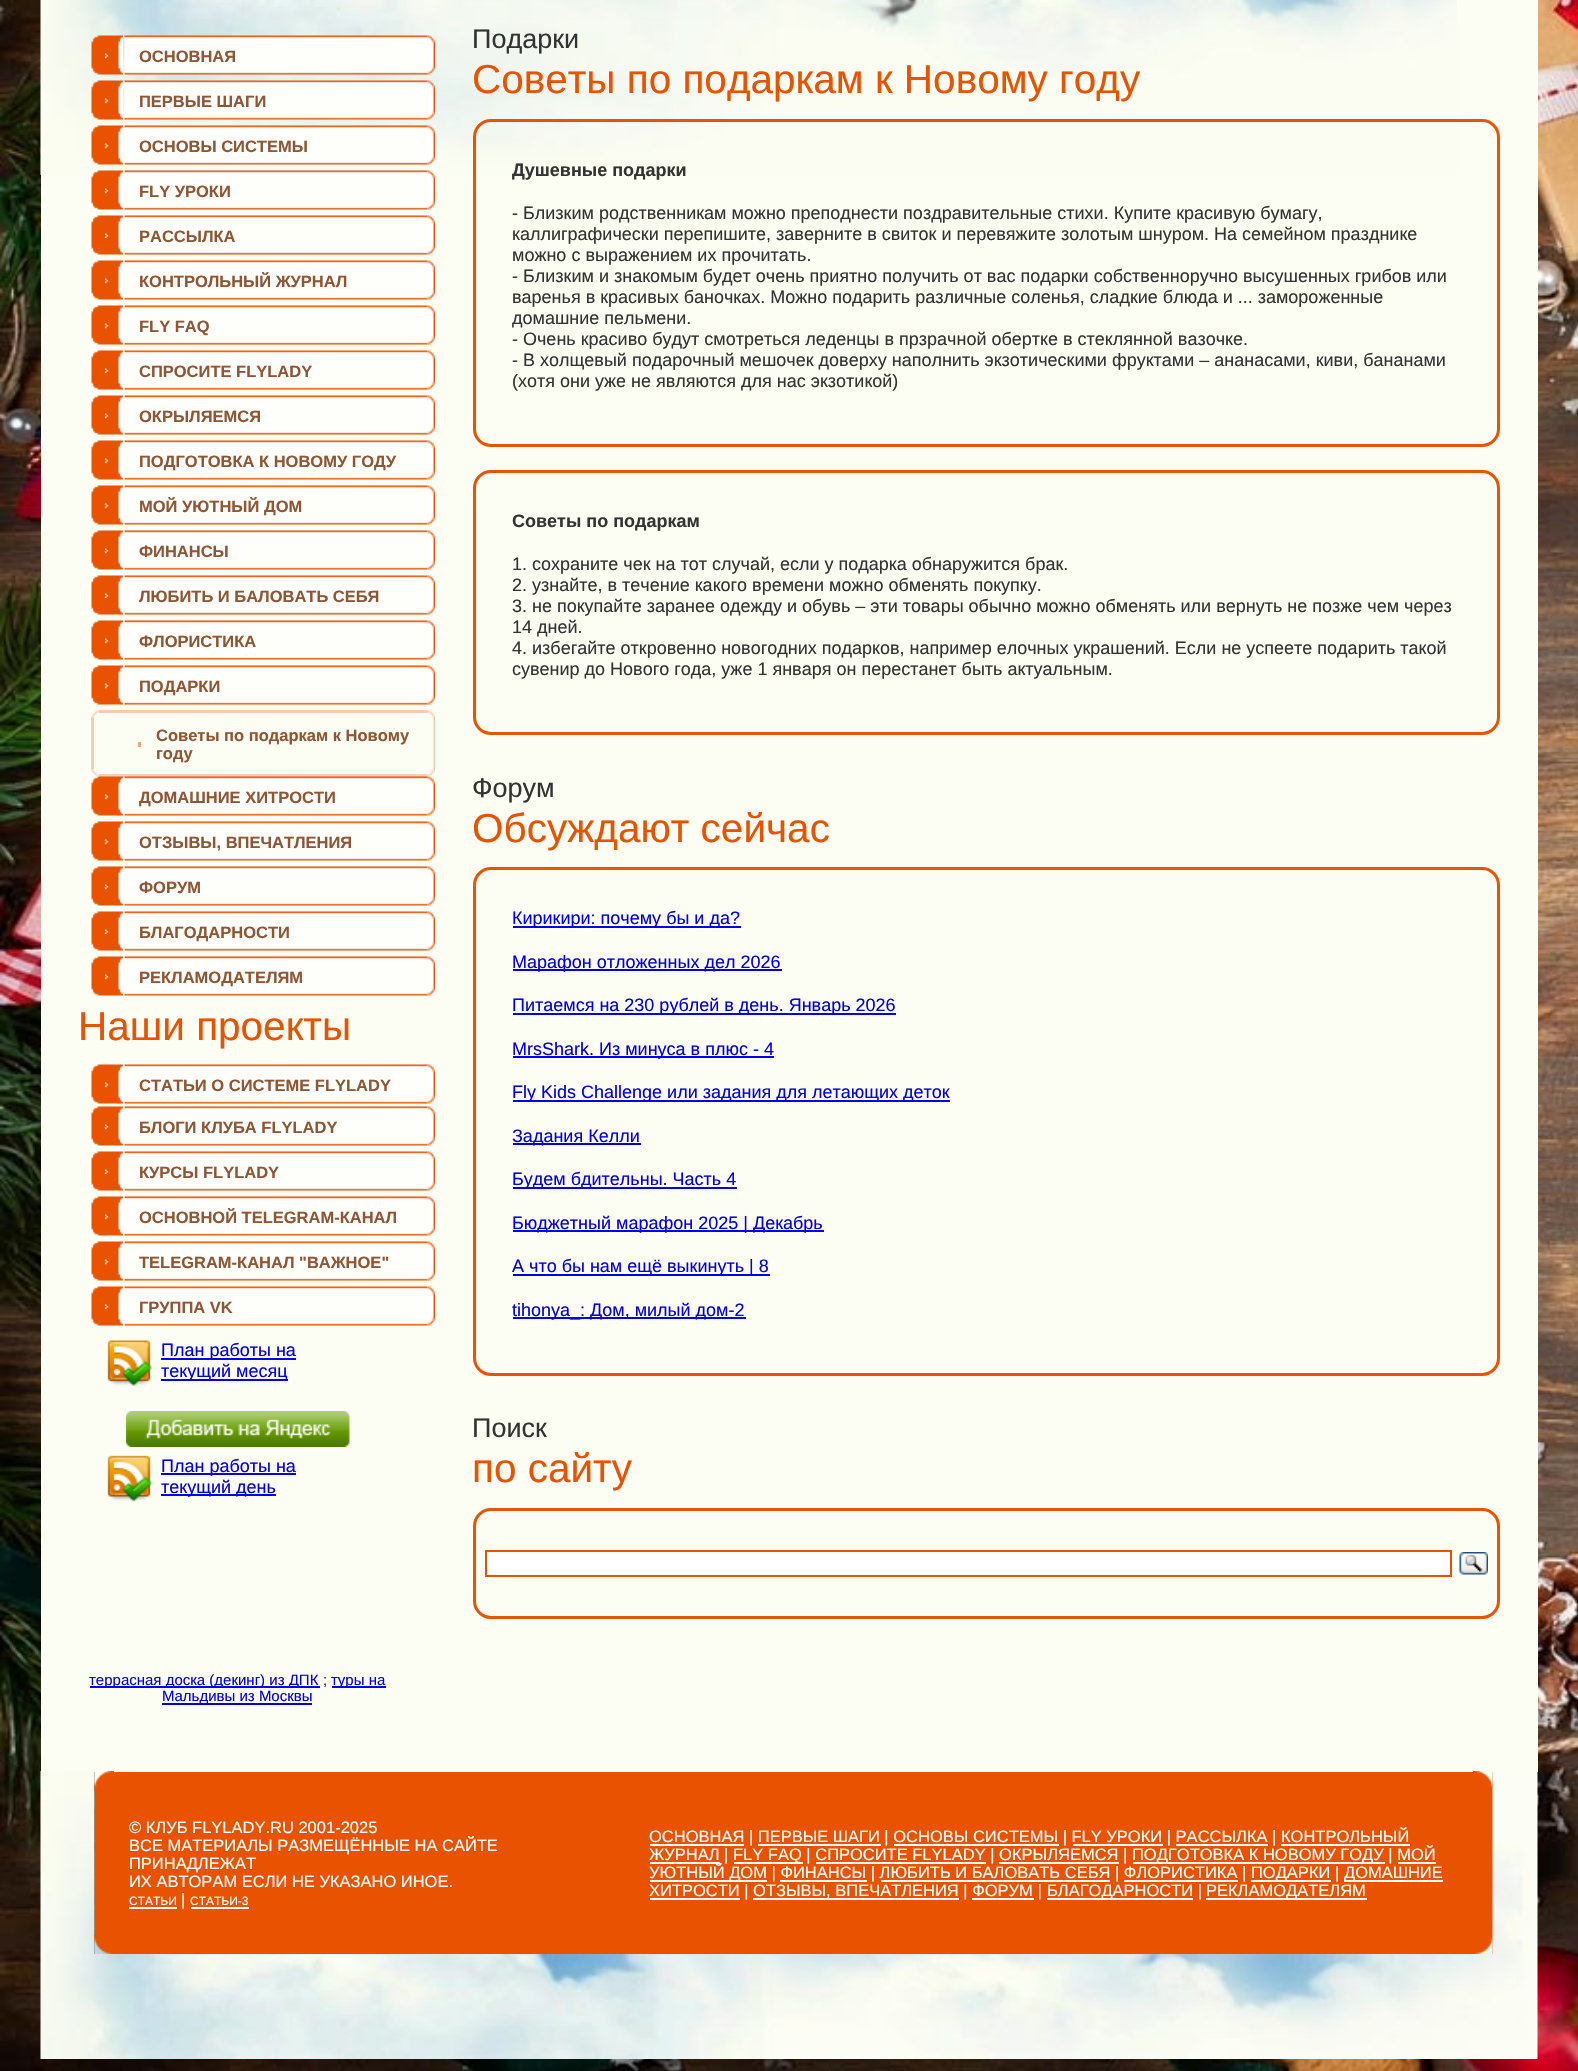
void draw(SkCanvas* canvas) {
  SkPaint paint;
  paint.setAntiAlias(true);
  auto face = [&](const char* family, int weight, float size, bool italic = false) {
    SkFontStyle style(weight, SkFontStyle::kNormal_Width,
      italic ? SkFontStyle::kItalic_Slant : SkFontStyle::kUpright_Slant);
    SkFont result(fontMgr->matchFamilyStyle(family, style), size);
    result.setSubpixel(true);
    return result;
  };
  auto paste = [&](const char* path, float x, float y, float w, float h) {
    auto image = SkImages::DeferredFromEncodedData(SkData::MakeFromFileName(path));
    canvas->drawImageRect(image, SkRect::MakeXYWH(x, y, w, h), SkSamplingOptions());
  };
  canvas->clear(0xffffffff);
  paste("img/1.png", 0, 0, 1578, 2071);
  paint.setColor(0xfffcfdf3);
  canvas->drawRect(SkRect::MakeXYWH(41, 0, 1497, 1772), paint);
  paste("img/2.png", 40, 0, 1417, 175);
  paste("img/3.png", 91, 35, 32, 40);
  paste("img/4.png", 124, 35, 304, 40);
  paste("img/5.png", 427, 35, 8, 40);
  paste("img/6.png", 91, 80, 32, 40);
  paste("img/7.png", 124, 80, 304, 40);
  paste("img/8.png", 427, 80, 8, 40);
  paste("img/9.png", 91, 125, 32, 40);
  paste("img/10.png", 124, 125, 304, 40);
  paste("img/11.png", 427, 125, 8, 40);
  paste("img/12.png", 91, 170, 32, 40);
  paste("img/13.png", 124, 170, 304, 40);
  paste("img/14.png", 427, 170, 8, 40);
  paste("img/15.png", 91, 215, 32, 40);
  paste("img/16.png", 124, 215, 304, 40);
  paste("img/17.png", 427, 215, 8, 40);
  paste("img/15.png", 91, 260, 32, 40);
  paste("img/16.png", 124, 260, 304, 40);
  paste("img/17.png", 427, 260, 8, 40);
  paste("img/15.png", 91, 305, 32, 40);
  paste("img/16.png", 124, 305, 304, 40);
  paste("img/17.png", 427, 305, 8, 40);
  paste("img/15.png", 91, 350, 32, 40);
  paste("img/16.png", 124, 350, 304, 40);
  paste("img/17.png", 427, 350, 8, 40);
  paste("img/15.png", 91, 395, 32, 40);
  paste("img/16.png", 124, 395, 304, 40);
  paste("img/17.png", 427, 395, 8, 40);
  paste("img/15.png", 91, 440, 32, 40);
  paste("img/16.png", 124, 440, 304, 40);
  paste("img/17.png", 427, 440, 8, 40);
  paste("img/15.png", 91, 485, 32, 40);
  paste("img/16.png", 124, 485, 304, 40);
  paste("img/17.png", 427, 485, 8, 40);
  paste("img/15.png", 91, 530, 32, 40);
  paste("img/16.png", 124, 530, 304, 40);
  paste("img/17.png", 427, 530, 8, 40);
  paste("img/15.png", 91, 575, 32, 40);
  paste("img/16.png", 124, 575, 304, 40);
  paste("img/17.png", 427, 575, 8, 40);
  paste("img/15.png", 91, 620, 32, 40);
  paste("img/16.png", 124, 620, 304, 40);
  paste("img/17.png", 427, 620, 8, 40);
  paste("img/15.png", 91, 665, 32, 40);
  paste("img/16.png", 124, 665, 304, 40);
  paste("img/17.png", 427, 665, 8, 40);
  paste("img/18.png", 91, 710, 8, 8);
  paint.setColor(0xfff5ccae);
  canvas->drawRect(SkRect::MakeXYWH(99, 710, 329, 3), paint);
  paste("img/19.png", 427, 710, 8, 8);
  canvas->drawRect(SkRect::MakeXYWH(91, 718, 3, 51), paint);
  paint.setColor(0xfff2a77a);
  canvas->drawRect(SkRect::MakeXYWH(138, 742, 3, 5), paint);
  paste("img/20.png", 433, 718, 2, 51);
  paint.setColor(0xfff6cfb2);
  canvas->drawRect(SkRect::MakeXYWH(99, 774, 329, 3), paint);
  paste("img/23.png", 91, 776, 32, 40);
  paste("img/21.png", 91, 769, 8, 8);
  paste("img/24.png", 124, 776, 304, 40);
  paste("img/25.png", 427, 776, 8, 40);
  paste("img/22.png", 427, 769, 8, 8);
  paste("img/15.png", 91, 821, 32, 40);
  paste("img/16.png", 124, 821, 304, 40);
  paste("img/17.png", 427, 821, 8, 40);
  paste("img/15.png", 91, 866, 32, 40);
  paste("img/16.png", 124, 866, 304, 40);
  paste("img/17.png", 427, 866, 8, 40);
  paste("img/15.png", 91, 911, 32, 40);
  paste("img/16.png", 124, 911, 304, 40);
  paste("img/17.png", 427, 911, 8, 40);
  paste("img/15.png", 91, 956, 32, 40);
  paste("img/16.png", 124, 956, 304, 40);
  paste("img/17.png", 427, 956, 8, 40);
  paste("img/15.png", 91, 1064, 32, 40);
  paste("img/16.png", 124, 1064, 304, 40);
  paste("img/17.png", 427, 1064, 8, 40);
  paste("img/15.png", 91, 1106, 32, 40);
  paste("img/16.png", 124, 1106, 304, 40);
  paste("img/17.png", 427, 1106, 8, 40);
  paste("img/15.png", 91, 1151, 32, 40);
  paste("img/16.png", 124, 1151, 304, 40);
  paste("img/17.png", 427, 1151, 8, 40);
  paste("img/15.png", 91, 1196, 32, 40);
  paste("img/16.png", 124, 1196, 304, 40);
  paste("img/17.png", 427, 1196, 8, 40);
  paste("img/15.png", 91, 1241, 32, 40);
  paste("img/16.png", 124, 1241, 304, 40);
  paste("img/17.png", 427, 1241, 8, 40);
  paste("img/15.png", 91, 1286, 32, 40);
  paste("img/16.png", 124, 1286, 304, 40);
  paste("img/17.png", 427, 1286, 8, 40);
  paste("img/26.png", 107, 1340, 45, 46);
  paint.setColor(0xff0000ee);
  canvas->drawRect(SkRect::MakeXYWH(161, 1358, 135, 2), paint);
  canvas->drawRect(SkRect::MakeXYWH(161, 1379, 127, 2), paint);
  paste("img/27.png", 126, 1411, 224, 36);
  paste("img/28.png", 107, 1455, 45, 47);
  canvas->drawRect(SkRect::MakeXYWH(161, 1473, 135, 2), paint);
  canvas->drawRect(SkRect::MakeXYWH(161, 1494, 115, 2), paint);
  paint.setStroke(true);
  paint.setStrokeWidth(3);
  paint.setColor(0xffe85403);
  canvas->drawRoundRect(SkRect::MakeXYWH(474.5f, 120.5f, 1024, 325), 16.5f, 16.5f, paint);
  canvas->drawRoundRect(SkRect::MakeXYWH(474.5f, 471.5f, 1024, 262), 16.5f, 16.5f, paint);
  canvas->drawRoundRect(SkRect::MakeXYWH(474.5f, 868.5f, 1024, 506), 16.5f, 16.5f, paint);
  paint.setStroke(false);
  {
    const struct { float x, y, w, h; SkColor color; } items[] = {
      {513, 926, 228, 2, 0xff0000ee},
      {513, 969, 269, 2, 0xff0000ee},
      {513, 1013, 383, 2, 0xff0000ee},
      {513, 1056, 261, 2, 0xff0000ee},
      {513, 1100, 437, 2, 0xff0000ee},
      {513, 1143, 128, 2, 0xff0000ee},
      {513, 1187, 224, 2, 0xff0000ee},
      {513, 1230, 311, 2, 0xff0000ee},
      {513, 1274, 257, 2, 0xff0000ee},
      {513, 1317, 233, 2, 0xff0000ee},
    };
    for (auto [x, y, w, h, color] : items) {
      paint.setColor(color);
      canvas->drawRect(SkRect::MakeXYWH(x, y, w, h), paint);
    }
  }
  paint.setStroke(true);
  paint.setColor(0xffe85403);
  canvas->drawRoundRect(SkRect::MakeXYWH(474.5f, 1509.5f, 1024, 108), 16.5f, 16.5f, paint);
  paint.setStroke(false);
  paint.setColor(0xffffffff);
  canvas->drawRect(SkRect::MakeXYWH(486, 1551, 965, 25), paint);
  paint.setStroke(true);
  paint.setStrokeWidth(2);
  paint.setColor(0xffe85200);
  canvas->drawRect(SkRect::MakeXYWH(486, 1551, 965, 25), paint);
  paste("img/29.png", 1459, 1552, 29, 23);
  paint.setStroke(false);
  {
    const struct { float x, y, w, h; SkColor color; } items[] = {
      {90, 1686, 230, 2, 0xff0000ee},
      {332, 1686, 54, 2, 0xff0000ee},
      {162, 1703, 150, 2, 0xff0000ee},
    };
    for (auto [x, y, w, h, color] : items) {
      paint.setColor(color);
      canvas->drawRect(SkRect::MakeXYWH(x, y, w, h), paint);
    }
  }
  paste("img/30.png", 40, 1771, 55, 183);
  paint.setColor(0xffe85200);
  canvas->drawRect(SkRect::MakeXYWH(95, 1772, 1398, 182), paint);
  paste("img/31.png", 94, 1771, 20, 20);
  paste("img/32.png", 1473, 1771, 20, 17);
  {
    const struct { float x, y, w, h; SkColor color; } items[] = {
      {129, 1907, 48, 2, 0xffffffff},
      {191, 1907, 58, 2, 0xffffffff},
      {650, 1844, 94, 2, 0xffffffff},
      {758, 1844, 123, 2, 0xffffffff},
      {894, 1844, 165, 2, 0xffffffff},
      {1073, 1844, 90, 2, 0xffffffff},
      {1176, 1844, 92, 2, 0xffffffff},
      {1281, 1844, 129, 2, 0xffffffff},
      {650, 1862, 70, 2, 0xffffffff},
      {734, 1862, 69, 2, 0xffffffff},
      {1133, 1862, 252, 2, 0xffffffff},
      {816, 1862, 170, 2, 0xffffffff},
      {999, 1862, 120, 2, 0xffffffff},
      {1398, 1862, 38, 2, 0xffffffff},
      {650, 1880, 117, 2, 0xffffffff},
      {1251, 1880, 80, 2, 0xffffffff},
      {1344, 1880, 99, 2, 0xffffffff},
      {780, 1880, 87, 2, 0xffffffff},
      {881, 1880, 229, 2, 0xffffffff},
      {1124, 1880, 114, 2, 0xffffffff},
      {650, 1898, 90, 2, 0xffffffff},
      {753, 1898, 206, 2, 0xffffffff},
      {1047, 1898, 146, 2, 0xffffffff},
      {1206, 1898, 161, 2, 0xffffffff},
      {972, 1898, 62, 2, 0xffffffff},
    };
    for (auto [x, y, w, h, color] : items) {
      paint.setColor(color);
      canvas->drawRect(SkRect::MakeXYWH(x, y, w, h), paint);
    }
  }
  paste("img/33.png", 94, 1934, 18, 20);
  paste("img/34.png", 1475, 1937, 18, 17);
  paste("img/35.png", 1492, 1772, 46, 182);
  paste("img/36.png", 40, 1954, 1498, 105);
  auto f0 = face("Liberation Sans", 700, 16.5f);
  paint.setColor(0xff905535);
  {
    const struct { const char* s; float x, y; } items[] = {
      {"ОСНОВНАЯ", 139, 62},
      {"ПЕРВЫЕ ШАГИ", 139, 107},
      {"ОСНОВЫ СИСТЕМЫ", 139, 152},
      {"FLY УРОКИ", 139, 197},
      {"РАССЫЛКА", 139, 242},
      {"КОНТРОЛЬНЫЙ ЖУРНАЛ", 139, 287},
      {"FLY FAQ", 139, 332},
      {"СПРОСИТЕ FLYLADY", 139, 377},
      {"ОКРЫЛЯЕМСЯ", 139, 422},
      {"ПОДГОТОВКА К НОВОМУ ГОДУ", 139, 467},
      {"МОЙ УЮТНЫЙ ДОМ", 139, 512},
      {"ФИНАНСЫ", 139, 557},
      {"ЛЮБИТЬ И БАЛОВАТЬ СЕБЯ", 139, 602},
      {"ФЛОРИСТИКА", 139, 647},
      {"ПОДАРКИ", 139, 692},
      {"Советы по подаркам к Новому", 156, 741},
      {"году", 156, 759},
      {"ДОМАШНИЕ ХИТРОСТИ", 139, 803},
      {"ОТЗЫВЫ, ВПЕЧАТЛЕНИЯ", 139, 848},
      {"ФОРУМ", 139, 893},
      {"БЛАГОДАРНОСТИ", 139, 938},
      {"РЕКЛАМОДАТЕЛЯМ", 139, 983},
    };
    for (auto [s, x, y] : items) {
      canvas->drawString(s, x, y, f0, paint);
    }
  }
  auto f1 = face("Liberation Sans", 400, 40.5f);
  paint.setColor(0xffe85200);
  canvas->drawString("Наши проекты", 78, 1040, f1, paint);
  paint.setColor(0xff905535);
  {
    const struct { const char* s; float x, y; } items[] = {
      {"СТАТЬИ О СИСТЕМЕ FLYLADY", 139, 1091},
      {"БЛОГИ КЛУБА FLYLADY", 139, 1133},
      {"КУРСЫ FLYLADY", 139, 1178},
      {"ОСНОВНОЙ TELEGRAM-КАНАЛ", 139, 1223},
      {"TELEGRAM-КАНАЛ \"ВАЖНОЕ\"", 139, 1268},
      {"ГРУППА VK", 139, 1313},
    };
    for (auto [s, x, y] : items) {
      canvas->drawString(s, x, y, f0, paint);
    }
  }
  auto f2 = face("Liberation Sans", 400, 18);
  paint.setColor(0xff0000ee);
  {
    const struct { const char* s; float x, y; } items[] = {
      {"План работы на", 161, 1356},
      {"текущий месяц", 161, 1377},
      {"План работы на", 161, 1472},
      {"текущий день", 161, 1493},
    };
    for (auto [s, x, y] : items) {
      canvas->drawString(s, x, y, f2, paint);
    }
  }
  auto f3 = face("Liberation Sans", 400, 27);
  paint.setColor(0xff333333);
  canvas->drawString("Подарки", 472, 48, f3, paint);
  paint.setColor(0xffe85200);
  canvas->drawString("Советы по подаркам к Новому году", 472, 93, f1, paint);
  auto f4 = face("Liberation Sans", 700, 18);
  paint.setColor(0xff333333);
  canvas->drawString("Душевные подарки", 512, 176, f4, paint);
  {
    const struct { const char* s; float x, y; } items[] = {
      {"- Близким родственникам можно преподнести поздравительные стихи. Купите красивую бумагу,", 512, 219},
      {"каллиграфически перепишите, заверните в свиток и перевяжите золотым шнуром. На семейном празднике", 512, 240},
      {"можно с выражением их прочитать.", 512, 261},
      {"- Близким и знакомым будет очень приятно получить от вас подарки собственноручно высушенных грибов или", 512, 282},
      {"варенья в красивых баночках. Можно подарить различные соленья, сладкие блюда и ... замороженные", 512, 303},
      {"домашние пельмени.", 512, 324},
      {"- Очень красиво будут смотреться леденцы в прзрачной обертке в стеклянной вазочке.", 512, 345},
      {"- В холщевый подарочный мешочек доверху наполнить экзотическими фруктами – ананасами, киви, бананами", 512, 366},
      {"(хотя они уже не являются для нас экзотикой)", 512, 387},
    };
    for (auto [s, x, y] : items) {
      canvas->drawString(s, x, y, f2, paint);
    }
  }
  canvas->drawString("Советы по подаркам", 512, 527, f4, paint);
  {
    const struct { const char* s; float x, y; } items[] = {
      {"1. сохраните чек на тот случай, если у подарка обнаружится брак.", 512, 570},
      {"2. узнайте, в течение какого времени можно обменять покупку.", 512, 591},
      {"3. не покупайте заранее одежду и обувь – эти товары обычно можно обменять или вернуть не позже чем через", 512, 612},
      {"14 дней.", 512, 633},
      {"4. избегайте откровенно новогодних подарков, например елочных украшений. Если не успеете подарить такой", 512, 654},
      {"сувенир до Нового года, уже 1 января он перестанет быть актуальным.", 512, 675},
    };
    for (auto [s, x, y] : items) {
      canvas->drawString(s, x, y, f2, paint);
    }
  }
  canvas->drawString("Форум", 472, 797, f3, paint);
  paint.setColor(0xffe85200);
  canvas->drawString("Обсуждают сейчас", 472, 842, f1, paint);
  paint.setColor(0xff0000ee);
  {
    const struct { const char* s; float x, y; } items[] = {
      {"Кирикири: почему бы и да?", 512, 924},
      {"Марафон отложенных дел 2026", 512, 968},
      {"Питаемся на 230 рублей в день. Январь 2026", 512, 1011},
      {"MrsShark. Из минуса в плюс - 4", 512, 1055},
      {"Fly Kids Challenge или задания для летающих деток", 512, 1098},
      {"Задания Келли", 512, 1142},
      {"Будем бдительны. Часть 4", 512, 1185},
      {"Бюджетный марафон 2025 | Декабрь", 512, 1229},
      {"А что бы нам ещё выкинуть | 8", 512, 1272},
      {"tihonya_: Дом, милый дом-2", 512, 1316},
    };
    for (auto [s, x, y] : items) {
      canvas->drawString(s, x, y, f2, paint);
    }
  }
  paint.setColor(0xff333333);
  canvas->drawString("Поиск", 472, 1437, f3, paint);
  paint.setColor(0xffe85200);
  canvas->drawString("по сайту", 472, 1482, f1, paint);
  auto f5 = face("Liberation Sans", 400, 15);
  paint.setColor(0xff0000ee);
  canvas->drawString("террасная доска (декинг) из ДПК", 89, 1685, f5, paint);
  paint.setColor(0xff333333);
  canvas->drawString(";", 323, 1685, f5, paint);
  paint.setColor(0xff0000ee);
  canvas->drawString("туры на", 331, 1685, f5, paint);
  canvas->drawString("Мальдивы из Москвы", 162, 1701, f5, paint);
  auto f6 = face("Liberation Sans", 400, 16.5f);
  paint.setColor(0xffffffff);
  {
    const struct { const char* s; float x, y; } items[] = {
      {"© КЛУБ FLYLADY.RU 2001-2025", 129, 1833},
      {"ВСЕ МАТЕРИАЛЫ РАЗМЕЩЁННЫЕ НА САЙТЕ", 129, 1851},
      {"ПРИНАДЛЕЖАТ", 129, 1869},
      {"ИХ АВТОРАМ ЕСЛИ НЕ УКАЗАНО ИНОЕ.", 129, 1887},
    };
    for (auto [s, x, y] : items) {
      canvas->drawString(s, x, y, f6, paint);
    }
  }
  auto f7 = face("Liberation Sans", 400, 12);
  canvas->drawString("СТАТЬИ", 129, 1905, f7, paint);
  canvas->drawString("|", 181, 1905, f6, paint);
  canvas->drawString("СТАТЬИ-3", 190, 1905, f7, paint);
  {
    const struct { const char* s; float x, y; } items[] = {
      {"ОСНОВНАЯ | ПЕРВЫЕ ШАГИ | ОСНОВЫ СИСТЕМЫ | FLY УРОКИ | РАССЫЛКА | КОНТРОЛЬНЫЙ", 649, 1842},
      {"ЖУРНАЛ |", 649, 1860},
      {"FLY FAQ | СПРОСИТЕ FLYLADY | ОКРЫЛЯЕМСЯ |", 733, 1860},
      {"ПОДГОТОВКА К НОВОМУ ГОДУ | МОЙ", 1132, 1860},
      {"УЮТНЫЙ ДОМ | ФИНАНСЫ | ЛЮБИТЬ И БАЛОВАТЬ СЕБЯ | ФЛОРИСТИКА |", 649, 1878},
      {"ПОДАРКИ |", 1251, 1878},
      {"ДОМАШНИЕ", 1344, 1878},
      {"ХИТРОСТИ |", 649, 1896},
      {"ОТЗЫВЫ, ВПЕЧАТЛЕНИЯ | ФОРУМ |", 753, 1896},
      {"БЛАГОДАРНОСТИ |", 1047, 1896},
      {"РЕКЛАМОДАТЕЛЯМ", 1206, 1896},
    };
    for (auto [s, x, y] : items) {
      canvas->drawString(s, x, y, f6, paint);
    }
  }
}
